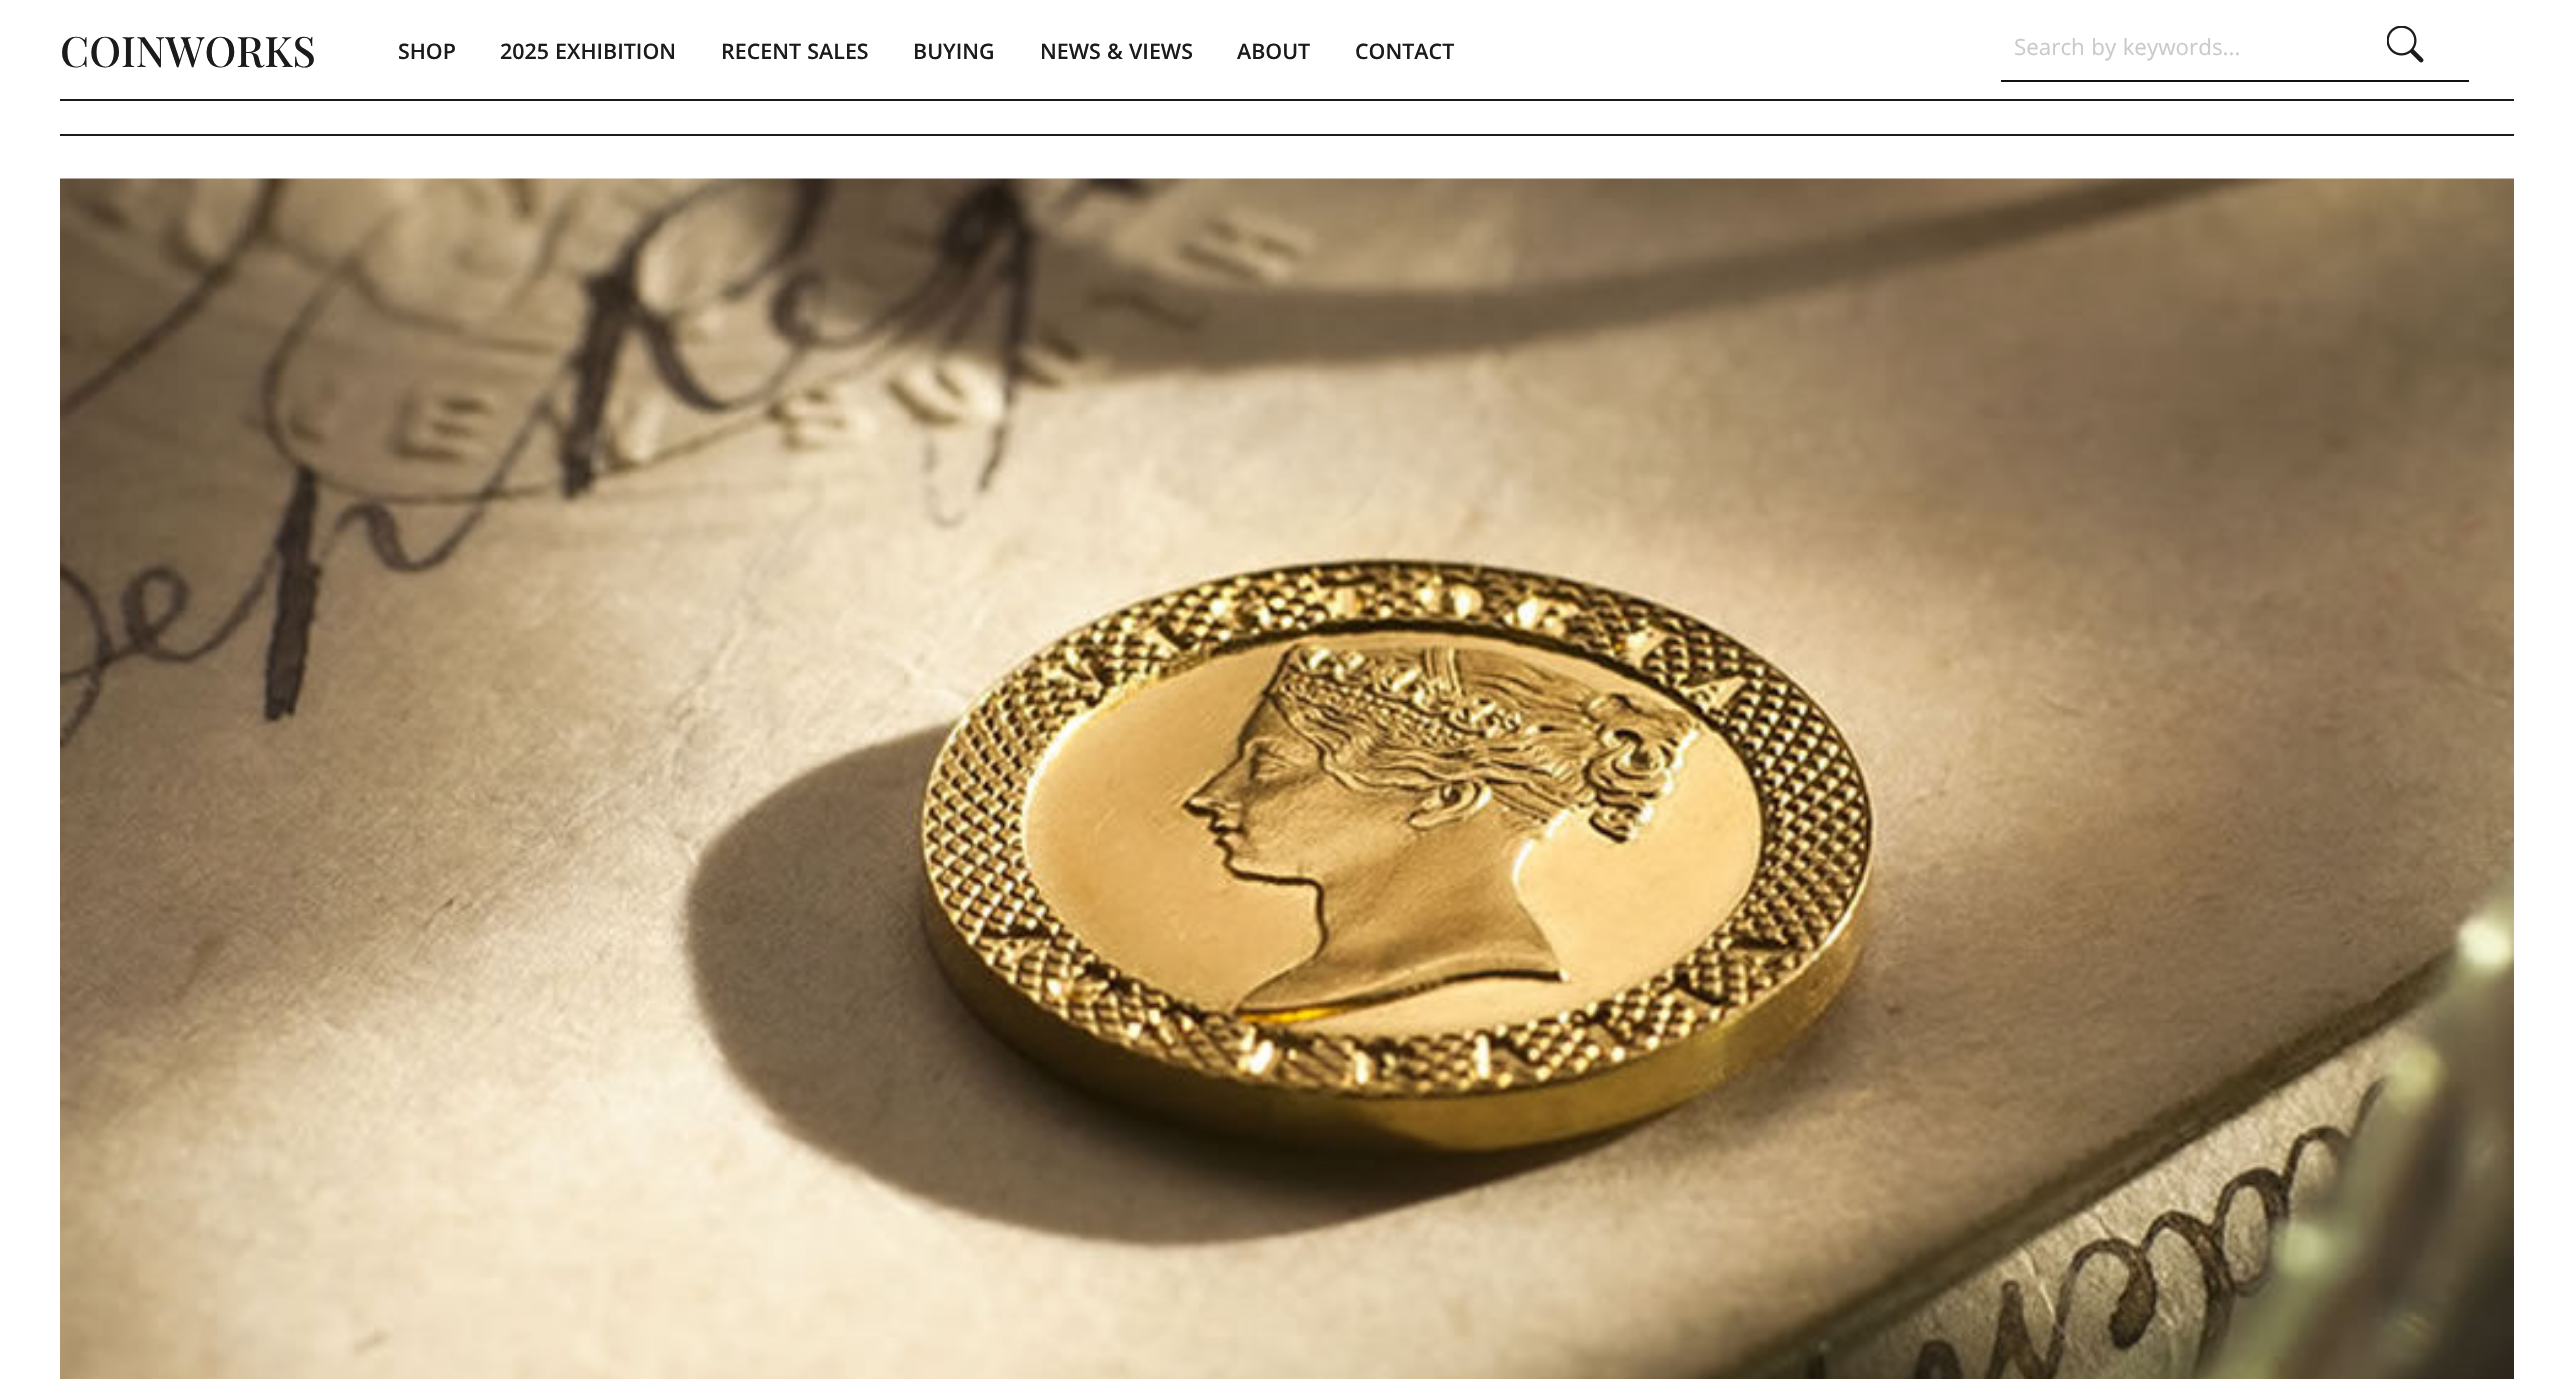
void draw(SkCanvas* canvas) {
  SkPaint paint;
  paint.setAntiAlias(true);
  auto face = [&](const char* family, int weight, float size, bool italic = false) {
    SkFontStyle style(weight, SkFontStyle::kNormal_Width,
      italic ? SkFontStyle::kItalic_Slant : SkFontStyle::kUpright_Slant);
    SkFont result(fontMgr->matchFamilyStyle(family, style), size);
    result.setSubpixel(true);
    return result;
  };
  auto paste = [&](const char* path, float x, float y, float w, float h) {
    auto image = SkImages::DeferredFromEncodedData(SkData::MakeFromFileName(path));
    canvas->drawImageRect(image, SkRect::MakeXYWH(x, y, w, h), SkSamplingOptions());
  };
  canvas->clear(0xffffffff);
  paint.setColor(0xff111111);
  canvas->drawRect(SkRect::MakeXYWH(2001, 80, 468, 2), paint);
  paste("img/1.png", 2387, 26, 37, 37);
  paint.setColor(0xff1b1b1b);
  canvas->drawRect(SkRect::MakeXYWH(60, 99, 2454, 2), paint);
  canvas->drawRect(SkRect::MakeXYWH(60, 134, 2454, 2), paint);
  paste("img/2.png", 60, 178, 2454, 1201);
  auto f0 = face("Playfair Display", 500, 42);
  canvas->drawString("COINWORKS", 60, 67, f0, paint);
  auto f1 = face("Khula", 600, 23);
  {
    const struct { const char* s; float x, y; } items[] = {
      {"SHOP", 398, 59},
      {"2025 EXHIBITION", 500, 59},
      {"RECENT SALES", 721, 59},
      {"BUYING", 913, 59},
      {"NEWS & VIEWS", 1040, 59},
      {"ABOUT", 1237, 59},
      {"CONTACT", 1355, 59},
    };
    for (auto [s, x, y] : items) {
      canvas->drawString(s, x, y, f1, paint);
    }
  }
  auto f2 = face("Khula", 400, 24);
  paint.setColor(0xffcacaca);
  canvas->drawString("Search by keywords...", 2014, 55, f2, paint);
}
